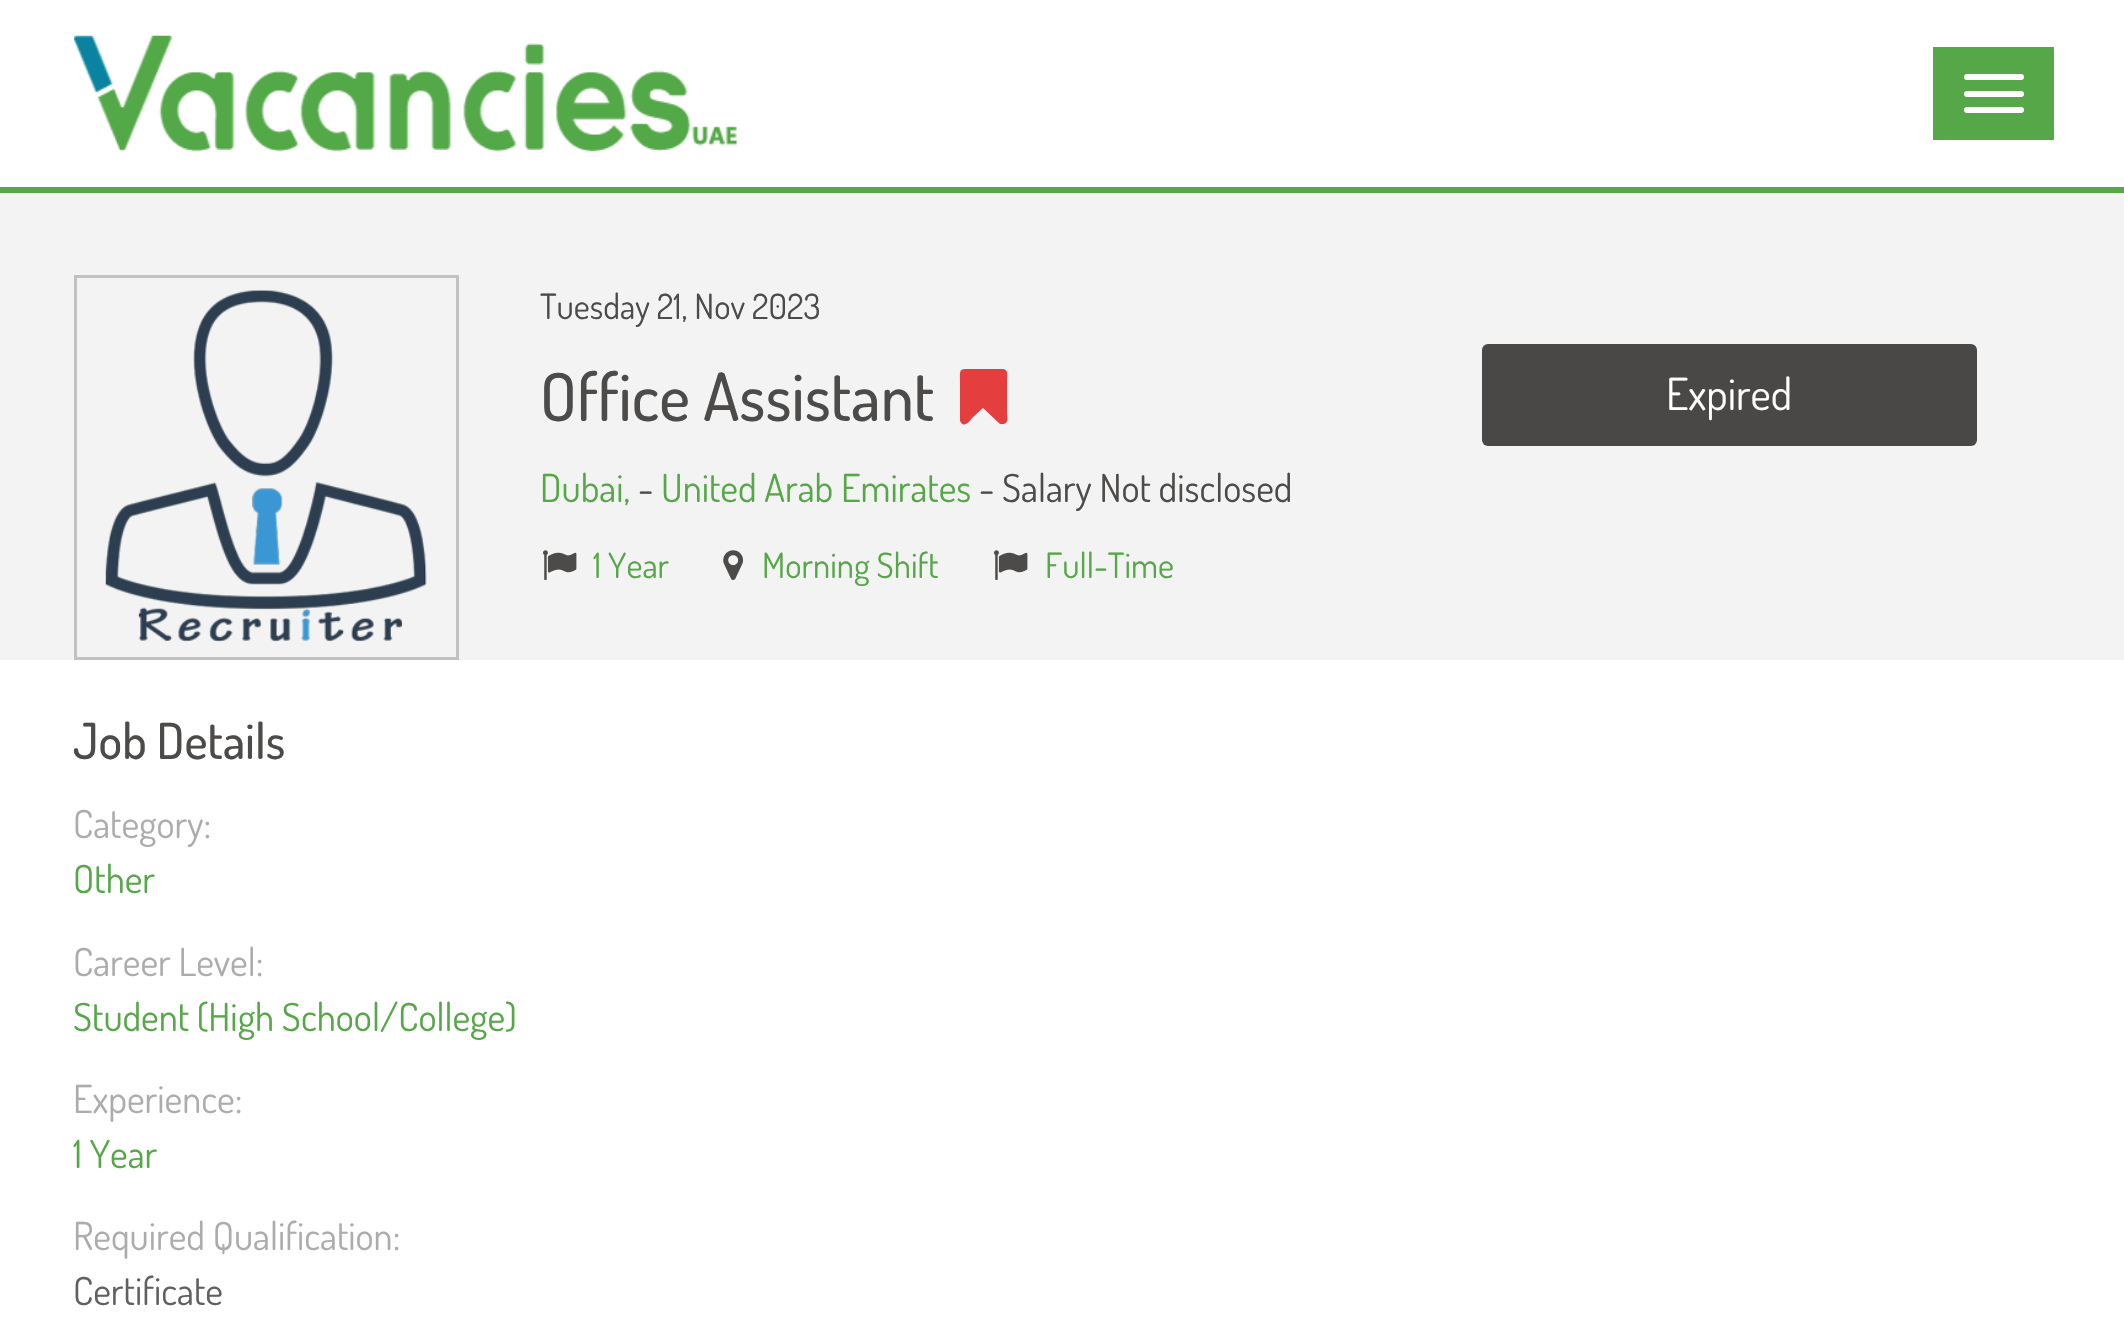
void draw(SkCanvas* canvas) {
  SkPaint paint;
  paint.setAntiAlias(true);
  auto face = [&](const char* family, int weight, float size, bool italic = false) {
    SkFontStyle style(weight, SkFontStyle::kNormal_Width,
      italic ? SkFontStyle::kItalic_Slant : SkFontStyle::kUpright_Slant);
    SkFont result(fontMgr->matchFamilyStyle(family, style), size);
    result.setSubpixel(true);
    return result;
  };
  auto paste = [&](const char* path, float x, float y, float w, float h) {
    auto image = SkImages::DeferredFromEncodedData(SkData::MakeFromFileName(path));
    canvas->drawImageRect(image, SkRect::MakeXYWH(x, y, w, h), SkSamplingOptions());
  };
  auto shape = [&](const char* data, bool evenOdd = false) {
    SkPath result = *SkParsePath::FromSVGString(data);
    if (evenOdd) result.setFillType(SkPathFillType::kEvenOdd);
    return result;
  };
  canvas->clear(0xffffffff);
  paint.setColor(0xff55a747);
  canvas->drawRect(SkRect::MakeXYWH(0, 187, 2124, 6), paint);
  paste("img/1.png", 74, 35, 663, 117);
  canvas->drawRect(SkRect::MakeXYWH(1933, 47, 121, 93), paint);
  paint.setColor(0xffffffff);
  canvas->drawRoundRect(SkRect::MakeXYWH(1964, 74, 60, 6), 3, 3, paint);
  canvas->drawRoundRect(SkRect::MakeXYWH(1964, 91, 60, 6), 3, 3, paint);
  canvas->drawRoundRect(SkRect::MakeXYWH(1964, 107, 60, 6), 3, 3, paint);
  paint.setColor(0xfff3f3f3);
  canvas->drawRect(SkRect::MakeXYWH(0, 193, 2124, 467), paint);
  paint.setStroke(true);
  paint.setStrokeWidth(3);
  paint.setColor(0xffc1c1c1);
  canvas->drawRect(SkRect::MakeXYWH(75.5f, 276.5f, 382, 382), paint);
  paste("img/2.png", 105, 289, 322, 353);
  paint.setStroke(false);
  paint.setColor(0xffe43e3e);
  canvas->drawPath(shape("M1003 369C1009 369 1007 378 1007 381V413C1007 416 1009 423 1004 424H1000L983 408L972 418C970 421 966 426 962 424L960 421V381C960 369 959 369 970 369Z"), paint);
  paste("img/3.png", 543, 550, 34, 30);
  paste("img/4.png", 723, 550, 20, 30);
  paste("img/3.png", 994, 550, 34, 30);
  paint.setColor(0xff494846);
  canvas->drawRoundRect(SkRect::MakeXYWH(1482, 344, 495, 102), 6, 6, paint);
  auto f0 = face("Dosis", 400, 34.75f);
  paint.setColor(0xff4c4b49);
  canvas->drawString("Tuesday 21, Nov 2023", 540, 319, f0, paint);
  auto f1 = face("Dosis", 500, 66);
  canvas->drawString("Office Assistant", 540, 421, f1, paint);
  auto f2 = face("Dosis", 400, 38.5f);
  paint.setColor(0xff55a747);
  canvas->drawString("Dubai,", 540, 502, f2, paint);
  paint.setColor(0xff4c4b49);
  canvas->drawString("-", 638, 502, f2, paint);
  paint.setColor(0xff55a747);
  canvas->drawString("United Arab Emirates", 661, 502, f2, paint);
  paint.setColor(0xff4c4b49);
  canvas->drawString("- Salary Not disclosed", 979, 502, f2, paint);
  paint.setColor(0xff55a747);
  {
    const struct { const char* s; float x, y; } items[] = {
      {"1 Year", 593, 578},
      {"Morning Shift", 762, 578},
      {"Full-Time", 1045, 578},
    };
    for (auto [s, x, y] : items) {
      canvas->drawString(s, x, y, f0, paint);
    }
  }
  auto f3 = face("Dosis", 400, 44);
  paint.setColor(0xffffffff);
  canvas->drawString("Expired", 1666, 410, f3, paint);
  auto f4 = face("Dosis", 500, 49.5f);
  paint.setColor(0xff4c4b49);
  canvas->drawString("Job Details", 73, 759, f4, paint);
  paint.setColor(0xffacacac);
  canvas->drawString("Category:", 73, 838, f2, paint);
  paint.setColor(0xff55a747);
  canvas->drawString("Other", 73, 893, f2, paint);
  paint.setColor(0xffacacac);
  canvas->drawString("Career Level:", 73, 976, f2, paint);
  paint.setColor(0xff55a747);
  canvas->drawString("Student (High School/College)", 73, 1031, f2, paint);
  paint.setColor(0xffacacac);
  canvas->drawString("Experience:", 73, 1113, f2, paint);
  paint.setColor(0xff55a747);
  canvas->drawString("1 Year", 73, 1168, f2, paint);
  paint.setColor(0xffacacac);
  canvas->drawString("Required Qualification:", 73, 1250, f2, paint);
  paint.setColor(0xff5f6062);
  canvas->drawString("Certificate", 73, 1305, f2, paint);
}
